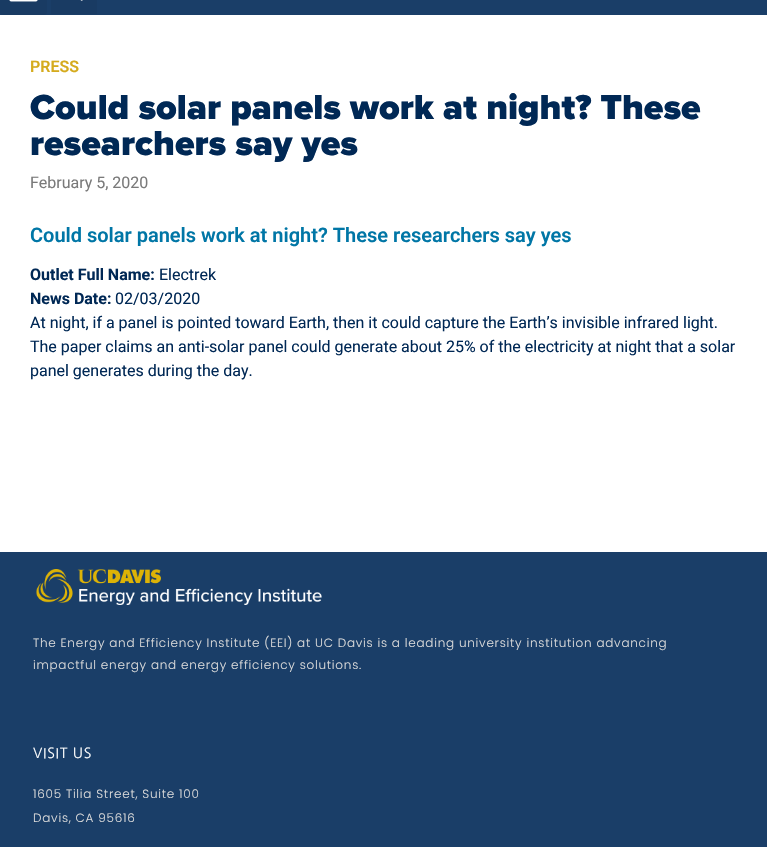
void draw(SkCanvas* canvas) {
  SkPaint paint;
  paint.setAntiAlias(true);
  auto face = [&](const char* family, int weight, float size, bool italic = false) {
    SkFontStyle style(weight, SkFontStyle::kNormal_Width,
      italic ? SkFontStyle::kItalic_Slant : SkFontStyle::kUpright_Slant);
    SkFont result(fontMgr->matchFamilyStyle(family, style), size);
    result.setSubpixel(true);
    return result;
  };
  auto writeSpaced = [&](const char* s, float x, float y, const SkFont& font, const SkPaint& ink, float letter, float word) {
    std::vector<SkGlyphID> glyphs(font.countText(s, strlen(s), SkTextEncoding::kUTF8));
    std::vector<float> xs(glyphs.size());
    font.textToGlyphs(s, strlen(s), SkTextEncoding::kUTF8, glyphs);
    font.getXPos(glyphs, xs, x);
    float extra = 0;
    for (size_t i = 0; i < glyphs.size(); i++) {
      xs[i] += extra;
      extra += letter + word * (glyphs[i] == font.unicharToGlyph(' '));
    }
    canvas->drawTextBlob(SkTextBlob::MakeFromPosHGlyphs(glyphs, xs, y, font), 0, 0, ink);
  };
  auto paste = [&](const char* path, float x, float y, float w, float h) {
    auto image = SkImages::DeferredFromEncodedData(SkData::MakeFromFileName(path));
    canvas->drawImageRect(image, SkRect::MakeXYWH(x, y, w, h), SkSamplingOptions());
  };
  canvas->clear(0xffffffff);
  paint.setColor(0xff1a3e68);
  canvas->drawRect(SkRect::MakeXYWH(0, 0, 767, 15), paint);
  paint.setColor(0xff193b63);
  canvas->drawRoundRect(SkRect::MakeXYWH(0, -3, 47, 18), 3, 3, paint);
  paste("img/1.png", 9, 0, 29, 2);
  canvas->drawRect(SkRect::MakeXYWH(51, 0, 46, 14), paint);
  paste("img/2.png", 80, 0, 3, 1);
  paint.setColor(0xff1a3e68);
  canvas->drawRect(SkRect::MakeXYWH(0, 552, 767, 295), paint);
  paste("img/3.png", 36, 569, 286, 36);
  auto f0 = face("Roboto", 600, 16);
  paint.setColor(0xffd5ab1e);
  canvas->drawString("PRESS", 30, 72, f0, paint);
  auto f1 = face("Proxima Nova", 900, 36);
  paint.setColor(0xff002855);
  canvas->drawString("Could solar panels work at night? These", 30, 119, f1, paint);
  canvas->drawString("researchers say yes", 30, 155, f1, paint);
  auto f2 = face("Roboto", 400, 16);
  paint.setColor(0xff7a7a7a);
  canvas->drawString("February 5, 2020", 30, 188, f2, paint);
  auto f3 = face("Roboto", 600, 20);
  paint.setColor(0xff0076a6);
  canvas->drawString("Could solar panels work at night? These researchers say yes", 30, 242, f3, paint);
  auto f4 = face("Roboto", 700, 16);
  paint.setColor(0xff002855);
  canvas->drawString("Outlet Full Name:", 30, 280, f4, paint);
  canvas->drawString("Electrek", 159, 280, f2, paint);
  canvas->drawString("News Date:", 30, 304, f4, paint);
  {
    const struct { const char* s; float x, y; } items[] = {
      {"02/03/2020", 115, 304},
      {"At night, if a panel is pointed toward Earth, then it could capture the Earth’s invisible infrared light.", 30, 328},
      {"The paper claims an anti-solar panel could generate about 25% of the electricity at night that a solar", 30, 352},
      {"panel generates during the day.", 30, 376},
    };
    for (auto [s, x, y] : items) {
      canvas->drawString(s, x, y, f2, paint);
    }
  }
  auto f5 = face("Poppins", 300, 12);
  paint.setColor(0xffdadada);
  writeSpaced("The Energy and Efficiency Institute (EEI) at UC Davis is a leading university institution advancing", 33, 647, f5, paint, 0.75f, 0);
  writeSpaced("impactful energy and energy efficiency solutions.", 33, 669, f5, paint, 0.75f, 0);
  auto f6 = face("NanumGothic", 400, 14);
  paint.setColor(0xffffffff);
  writeSpaced("VISIT US", 33, 758, f6, paint, 0.75f, 0);
  paint.setColor(0xffdadada);
  writeSpaced("1605 Tilia Street, Suite 100", 33, 798, f5, paint, 0.75f, 0);
  writeSpaced("Davis, CA 95616", 33, 822, f5, paint, 0.75f, 0);
}
